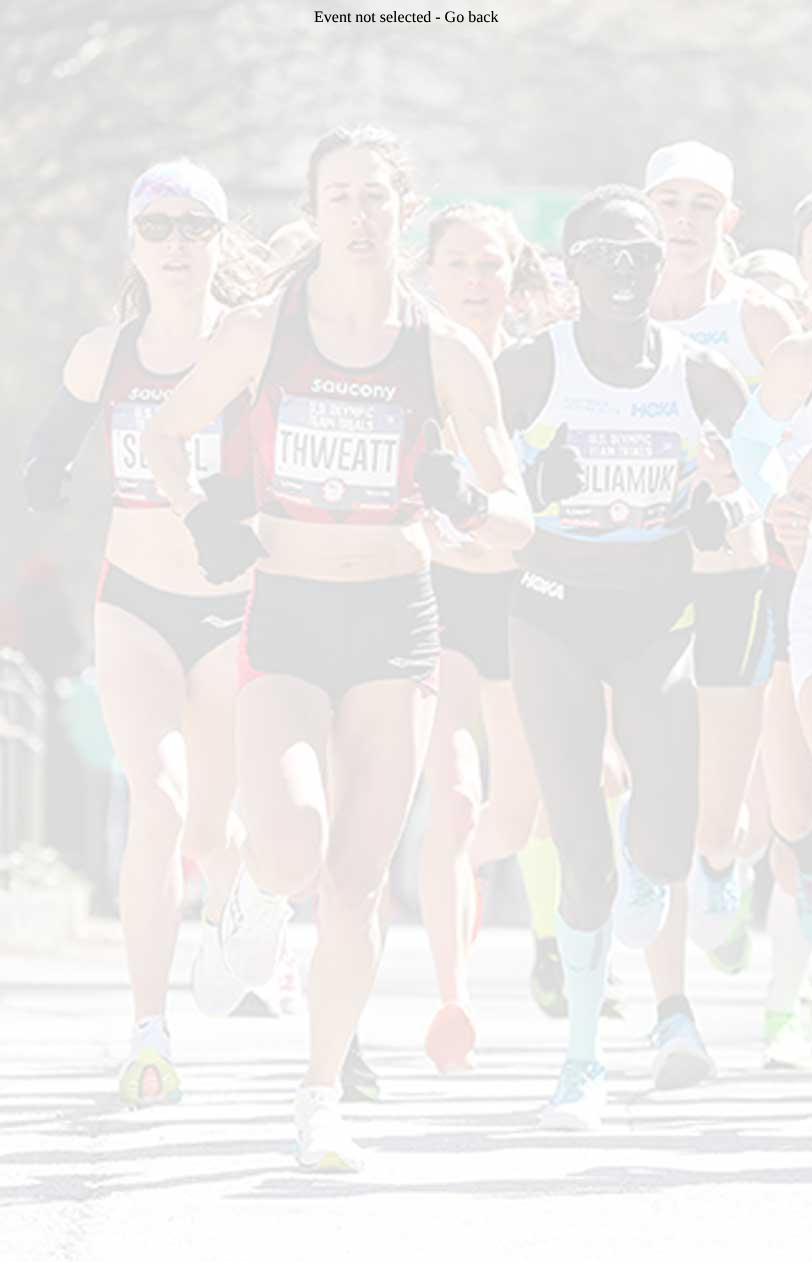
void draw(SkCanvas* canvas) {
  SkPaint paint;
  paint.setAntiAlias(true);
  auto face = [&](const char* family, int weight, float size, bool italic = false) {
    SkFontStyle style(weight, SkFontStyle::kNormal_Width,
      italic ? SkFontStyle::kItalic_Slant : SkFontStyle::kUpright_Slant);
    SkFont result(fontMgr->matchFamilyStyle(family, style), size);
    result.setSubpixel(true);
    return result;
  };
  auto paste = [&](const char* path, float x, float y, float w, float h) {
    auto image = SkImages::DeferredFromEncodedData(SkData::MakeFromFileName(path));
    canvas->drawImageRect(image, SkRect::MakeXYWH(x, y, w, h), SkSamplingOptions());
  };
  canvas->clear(0xffffffff);
  paste("img/1.png", 0, 0, 812, 1262);
  auto f0 = face("Liberation Serif", 400, 16);
  paint.setColor(0xff000000);
  canvas->drawString("Event not selected - Go back", 314, 22, f0, paint);
}
